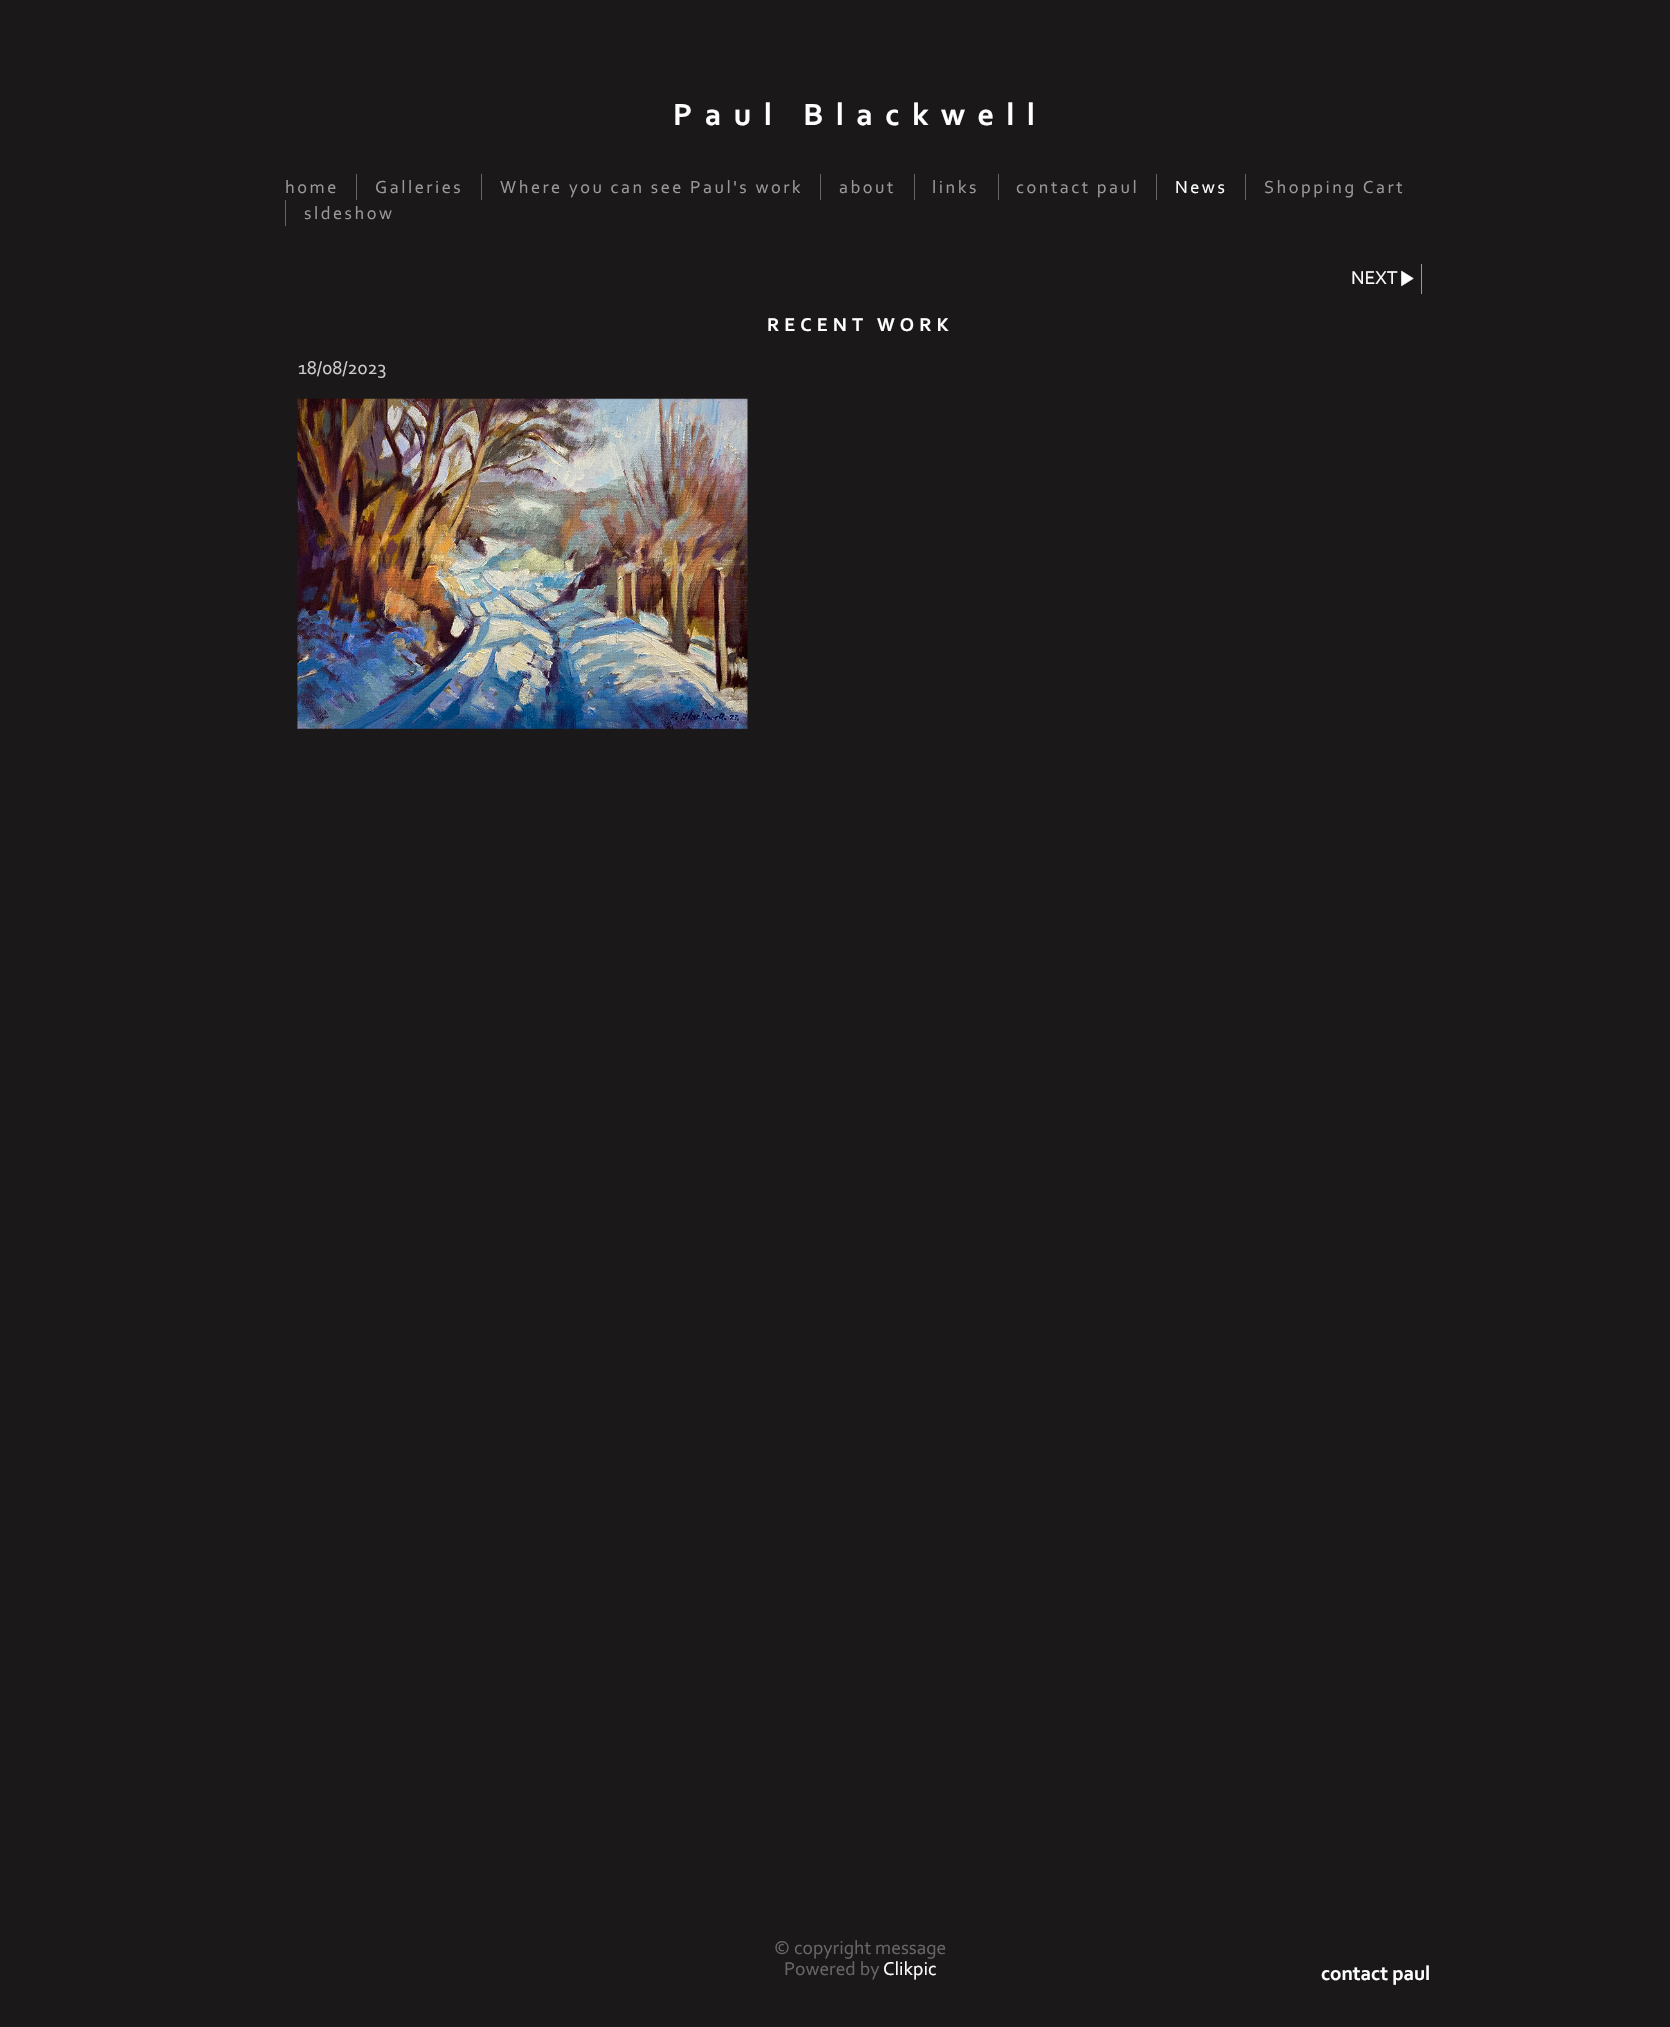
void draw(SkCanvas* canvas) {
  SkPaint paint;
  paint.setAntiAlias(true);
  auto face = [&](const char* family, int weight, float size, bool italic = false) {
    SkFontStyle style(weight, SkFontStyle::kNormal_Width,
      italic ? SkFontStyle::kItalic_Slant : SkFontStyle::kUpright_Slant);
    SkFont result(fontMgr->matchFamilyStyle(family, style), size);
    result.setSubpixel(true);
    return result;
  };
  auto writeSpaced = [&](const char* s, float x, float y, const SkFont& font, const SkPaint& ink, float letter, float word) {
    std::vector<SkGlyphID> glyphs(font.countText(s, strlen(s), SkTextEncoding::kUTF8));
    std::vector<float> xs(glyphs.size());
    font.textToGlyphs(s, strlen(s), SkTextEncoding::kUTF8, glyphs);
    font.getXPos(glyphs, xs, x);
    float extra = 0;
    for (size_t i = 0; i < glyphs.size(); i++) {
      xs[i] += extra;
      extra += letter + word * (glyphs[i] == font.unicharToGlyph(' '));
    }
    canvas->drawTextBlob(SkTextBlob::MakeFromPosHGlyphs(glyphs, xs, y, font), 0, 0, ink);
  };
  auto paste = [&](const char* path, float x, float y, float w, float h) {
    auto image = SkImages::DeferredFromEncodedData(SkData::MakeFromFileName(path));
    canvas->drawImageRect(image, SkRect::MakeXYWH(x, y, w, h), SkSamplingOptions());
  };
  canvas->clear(0xff1a1818);
  {
    const struct { float x, y, w, h; SkColor color; } items[] = {
      {356, 174, 1, 26, 0xff666666},
      {481, 174, 1, 26, 0xff666666},
      {820, 174, 1, 26, 0xff666666},
      {914, 174, 1, 26, 0xff666666},
      {998, 174, 1, 26, 0xff666666},
      {1156, 174, 1, 26, 0xff666666},
      {1245, 174, 1, 26, 0xff666666},
      {285, 200, 1, 26, 0xff666666},
      {1421, 264, 1, 30, 0xff999999},
    };
    for (auto [x, y, w, h, color] : items) {
      paint.setColor(color);
      canvas->drawRect(SkRect::MakeXYWH(x, y, w, h), paint);
    }
  }
  paste("img/1.png", 1401, 270, 13, 17);
  paste("img/2.png", 297, 398, 451, 331);
  auto f0 = face("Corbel", 700, 32);
  paint.setColor(0xffffffff);
  writeSpaced("Paul Blackwell", 673, 125, f0, paint, 12.5f, 0);
  auto f1 = face("Corbel", 400, 18.3f);
  paint.setColor(0xff999999);
  {
    const struct { const char* s; float x, y; } items[] = {
      {"home", 285, 193},
      {"Galleries", 375, 193},
      {"Where you can see Paul's work", 500, 193},
      {"about", 839, 193},
      {"links", 932, 193},
      {"contact paul", 1016, 193},
    };
    for (auto [s, x, y] : items) {
      writeSpaced(s, x, y, f1, paint, 2.5f, 0);
    }
  }
  paint.setColor(0xffffffff);
  writeSpaced("News", 1175, 193, f1, paint, 2.5f, 0);
  paint.setColor(0xff999999);
  writeSpaced("Shopping Cart", 1264, 193, f1, paint, 2.5f, 0);
  writeSpaced("sldeshow", 304, 219, f1, paint, 2.5f, 0);
  auto f2 = face("Corbel", 400, 19.5f);
  paint.setColor(0xffffffff);
  canvas->drawString("NEXT", 1351, 284, f2, paint);
  auto f3 = face("Corbel", 700, 19.5f);
  writeSpaced("RECENT WORK", 767, 331, f3, paint, 5, 0);
  paint.setColor(0xffcccccc);
  canvas->drawString("18/08/2023", 298, 374, f2, paint);
  paint.setColor(0xff666666);
  canvas->drawString("© copyright message", 774, 1954, f2, paint);
  canvas->drawString("Powered by", 784, 1975, f2, paint);
  paint.setColor(0xffffffff);
  canvas->drawString("Clikpic", 883, 1975, f2, paint);
  auto f4 = face("Corbel", 700, 20.5f);
  canvas->drawString("contact paul", 1321, 1980, f4, paint);
}
